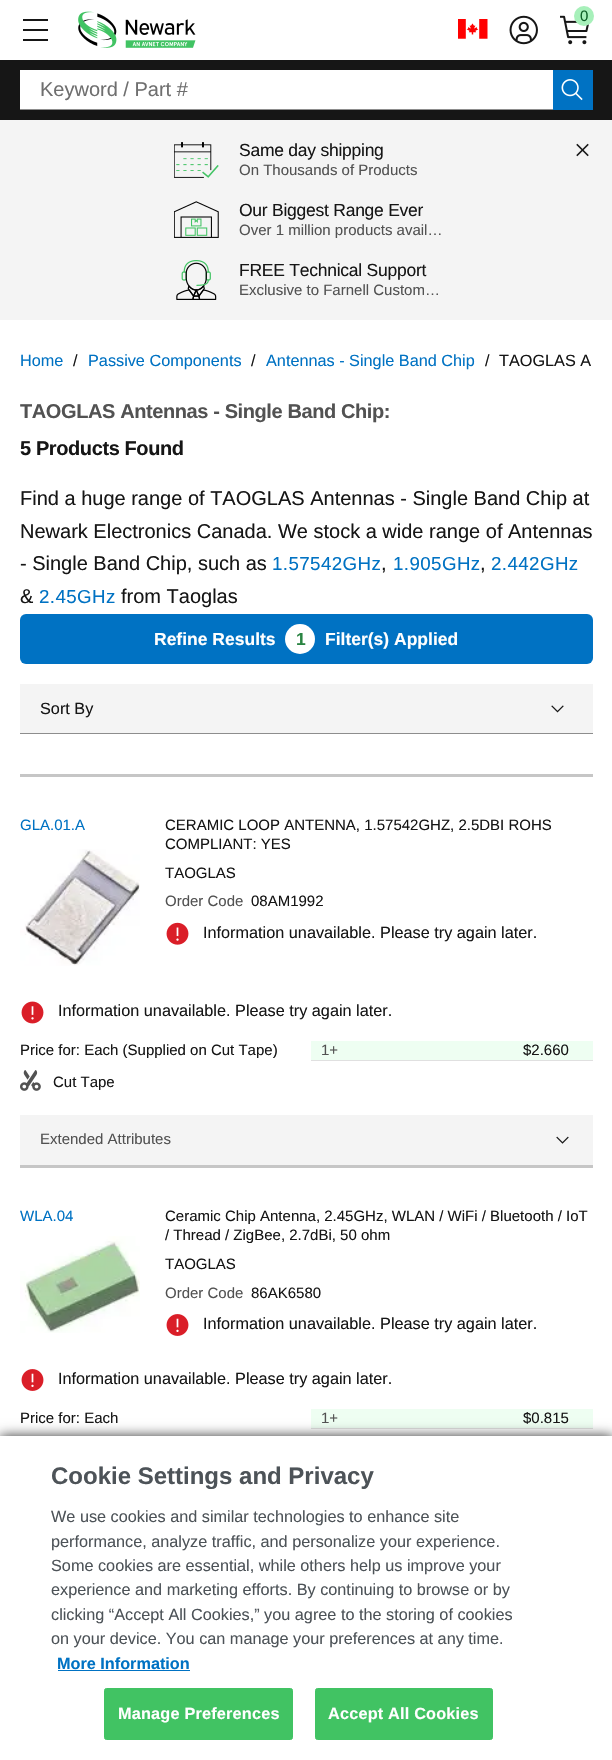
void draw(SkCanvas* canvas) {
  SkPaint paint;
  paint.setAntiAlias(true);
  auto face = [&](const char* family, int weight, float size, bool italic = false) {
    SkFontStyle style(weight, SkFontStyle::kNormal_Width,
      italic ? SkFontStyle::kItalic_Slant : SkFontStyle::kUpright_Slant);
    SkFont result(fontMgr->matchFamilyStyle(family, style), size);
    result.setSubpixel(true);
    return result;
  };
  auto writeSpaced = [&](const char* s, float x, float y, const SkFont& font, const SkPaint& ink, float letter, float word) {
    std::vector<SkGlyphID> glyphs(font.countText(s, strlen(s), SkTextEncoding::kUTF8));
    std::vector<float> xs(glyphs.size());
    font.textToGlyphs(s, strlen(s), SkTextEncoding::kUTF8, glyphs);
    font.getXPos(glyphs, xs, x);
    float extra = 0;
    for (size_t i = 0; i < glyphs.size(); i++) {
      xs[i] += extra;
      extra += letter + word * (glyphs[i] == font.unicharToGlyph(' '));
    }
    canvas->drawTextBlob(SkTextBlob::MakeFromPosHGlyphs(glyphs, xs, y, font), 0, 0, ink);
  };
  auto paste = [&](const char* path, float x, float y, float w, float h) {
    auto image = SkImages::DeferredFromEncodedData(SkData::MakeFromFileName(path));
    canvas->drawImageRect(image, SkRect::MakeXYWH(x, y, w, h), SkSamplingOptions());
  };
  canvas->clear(0xffffffff);
  {
    const struct { float x, y, w, h; SkColor color; } items[] = {
      {23, 19, 25, 2, 0xff161616},
      {23, 29, 25, 2, 0xff161616},
      {23, 39, 25, 2, 0xff161616},
    };
    for (auto [x, y, w, h, color] : items) {
      paint.setColor(color);
      canvas->drawRect(SkRect::MakeXYWH(x, y, w, h), paint);
    }
  }
  paste("img/1.png", 78, 11, 118, 37);
  paste("img/2.png", 458, 19, 30, 20);
  paste("img/3.png", 509, 15, 29, 30);
  paste("img/4.png", 560, 15, 29, 30);
  paint.setColor(0xffa7f0ba);
  canvas->drawCircle(584, 16, 10, paint);
  {
    const struct { float x, y, w, h; SkColor color; } items[] = {
      {0, 60, 612, 60, 0xff161616},
      {20, 70, 533, 39, 0xffffffff},
      {20, 109, 533, 1, 0xff8d8d8d},
      {553, 70, 40, 40, 0xff0072c3},
    };
    for (auto [x, y, w, h, color] : items) {
      paint.setColor(color);
      canvas->drawRect(SkRect::MakeXYWH(x, y, w, h), paint);
    }
  }
  paste("img/5.png", 561, 79, 22, 22);
  paint.setColor(0xfff4f4f4);
  canvas->drawRect(SkRect::MakeXYWH(0, 120, 612, 200), paint);
  paste("img/6.png", 174, 142, 45, 36);
  paste("img/7.png", 174, 201, 45, 37);
  paste("img/8.png", 176, 260, 41, 40);
  paste("img/9.png", 576, 143, 13, 14);
  paint.setColor(0xff0072c3);
  canvas->drawRoundRect(SkRect::MakeXYWH(20, 614, 573, 50), 6, 6, paint);
  paint.setColor(0xffffffff);
  canvas->drawCircle(300, 639, 15, paint);
  paint.setColor(0xfff4f4f4);
  canvas->drawRect(SkRect::MakeXYWH(20, 684, 573, 49), paint);
  paint.setColor(0xff8d8d8d);
  canvas->drawRect(SkRect::MakeXYWH(20, 733, 573, 1), paint);
  paste("img/10.png", 551, 705, 13, 8);
  paint.setColor(0xffc6c6c6);
  canvas->drawRect(SkRect::MakeXYWH(20, 774, 573, 3), paint);
  paste("img/11.png", 20, 849, 120, 117);
  paste("img/12.png", 166, 922, 23, 23);
  paste("img/13.png", 21, 1001, 23, 23);
  paste("img/14.png", 20, 1070, 21, 21);
  {
    const struct { float x, y, w, h; SkColor color; } items[] = {
      {311, 1041, 282, 19, 0xffeefef2},
      {311, 1060, 282, 1, 0xffe0e0e0},
      {20, 1115, 573, 50, 0xfff4f4f4},
    };
    for (auto [x, y, w, h, color] : items) {
      paint.setColor(color);
      canvas->drawRect(SkRect::MakeXYWH(x, y, w, h), paint);
    }
  }
  paste("img/15.png", 556, 1136, 13, 8);
  paint.setColor(0xffc6c6c6);
  canvas->drawRect(SkRect::MakeXYWH(20, 1165, 573, 3), paint);
  paste("img/16.png", 20, 1236, 120, 97);
  paste("img/17.png", 166, 1314, 23, 22);
  paste("img/17.png", 21, 1369, 23, 22);
  paint.setColor(0xffeefef2);
  canvas->drawRect(SkRect::MakeXYWH(311, 1409, 282, 19), paint);
  paint.setColor(0xffe0e0e0);
  canvas->drawRect(SkRect::MakeXYWH(311, 1428, 282, 1), paint);
  paint.setColor(0xcc000000);
  paint.setMaskFilter(SkMaskFilter::MakeBlur(kNormal_SkBlurStyle, 6));
  canvas->drawRect(SkRect::MakeXYWH(0, 1436, 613, 324), paint);
  paint.setMaskFilter(nullptr);
  paint.setColor(0xffffffff);
  canvas->drawRect(SkRect::MakeXYWH(0, 1436, 612, 324), paint);
  paint.setColor(0xff0072c3);
  canvas->drawRect(SkRect::MakeXYWH(58, 1670, 132, 1), paint);
  paint.setColor(0xff41c363);
  canvas->drawRoundRect(SkRect::MakeXYWH(104.5f, 1688.5f, 188, 51), 2, 2, paint);
  paint.setStroke(true);
  paint.setStrokeWidth(1);
  canvas->drawRoundRect(SkRect::MakeXYWH(104.5f, 1688.5f, 188, 51), 2, 2, paint);
  paint.setStroke(false);
  canvas->drawRoundRect(SkRect::MakeXYWH(315.5f, 1688.5f, 177, 51), 2, 2, paint);
  paint.setStroke(true);
  canvas->drawRoundRect(SkRect::MakeXYWH(315.5f, 1688.5f, 177, 51), 2, 2, paint);
  auto f0 = face("Liberation Sans", 400, 15);
  paint.setStroke(false);
  paint.setColor(0xff0e6027);
  canvas->drawString("0", 580, 21, f0, paint);
  auto f1 = face("Liberation Sans", 400, 20);
  paint.setColor(0xff6f6f6f);
  canvas->drawString("Keyword / Part #", 40, 96, f1, paint);
  auto f2 = face("Liberation Sans", 400, 17.5f);
  paint.setColor(0xff161616);
  writeSpaced("Same day shipping", 239, 156, f2, paint, -0.25f, 0);
  paint.setColor(0xff525252);
  canvas->drawString("On Thousands of Products", 239, 175, f0, paint);
  paint.setColor(0xff161616);
  writeSpaced("Our Biggest Range Ever", 239, 216, f2, paint, -0.25f, 0);
  paint.setColor(0xff525252);
  canvas->drawString("Over 1 million products avail…", 239, 235, f0, paint);
  paint.setColor(0xff161616);
  writeSpaced("FREE Technical Support", 239, 276, f2, paint, -0.25f, 0);
  paint.setColor(0xff525252);
  canvas->drawString("Exclusive to Farnell Custom…", 239, 295, f0, paint);
  auto f3 = face("Liberation Sans", 400, 16.25f);
  paint.setColor(0xff0072c3);
  canvas->drawString("Home", 20, 366, f3, paint);
  paint.setColor(0xff161616);
  canvas->drawString("/", 73, 366, f3, paint);
  paint.setColor(0xff0072c3);
  canvas->drawString("Passive Components", 88, 366, f3, paint);
  paint.setColor(0xff161616);
  canvas->drawString("/", 251, 366, f3, paint);
  paint.setColor(0xff0072c3);
  canvas->drawString("Antennas - Single Band Chip", 266, 366, f3, paint);
  paint.setColor(0xff161616);
  canvas->drawString("/", 485, 366, f3, paint);
  canvas->drawString("TAOGLAS A", 499, 366, f3, paint);
  auto f4 = face("Liberation Sans", 700, 20);
  paint.setColor(0xff525252);
  writeSpaced("TAOGLAS Antennas - Single Band Chip:", 20, 418, f4, paint, -0.4f, 0);
  paint.setColor(0xff161616);
  writeSpaced("5 Products Found", 20, 455, f4, paint, -0.4f, 0);
  {
    const struct { const char* s; float x, y; } items[] = {
      {"Find a huge range of TAOGLAS Antennas - Single Band Chip at", 20, 505},
      {"Newark Electronics Canada. We stock a wide range of Antennas", 20, 538},
      {"- Single Band Chip, such as", 20, 570},
    };
    for (auto [s, x, y] : items) {
      canvas->drawString(s, x, y, f1, paint);
    }
  }
  auto f5 = face("Liberation Sans", 400, 18.75f);
  paint.setColor(0xff0072c3);
  writeSpaced("1.57542GHz", 272, 570, f5, paint, 0.4f, 0);
  paint.setColor(0xff161616);
  canvas->drawString(",", 381, 570, f1, paint);
  paint.setColor(0xff0072c3);
  writeSpaced("1.905GHz", 393, 570, f5, paint, 0.4f, 0);
  paint.setColor(0xff161616);
  canvas->drawString(",", 480, 570, f1, paint);
  paint.setColor(0xff0072c3);
  writeSpaced("2.442GHz", 491, 570, f5, paint, 0.4f, 0);
  paint.setColor(0xff161616);
  canvas->drawString("&", 20, 603, f1, paint);
  paint.setColor(0xff0072c3);
  writeSpaced("2.45GHz", 39, 603, f5, paint, 0.4f, 0);
  paint.setColor(0xff161616);
  canvas->drawString("from Taoglas", 121, 603, f1, paint);
  auto f6 = face("Liberation Sans", 700, 17.5f);
  paint.setColor(0xffffffff);
  canvas->drawString("Refine Results", 154, 645, f6, paint);
  paint.setColor(0xff2a8442);
  canvas->drawString("1", 296, 645, f6, paint);
  paint.setColor(0xffffffff);
  canvas->drawString("Filter(s) Applied", 325, 645, f6, paint);
  paint.setColor(0xff161616);
  canvas->drawString("Sort By", 40, 714, f3, paint);
  paint.setColor(0xff0072c3);
  canvas->drawString("GLA.01.A", 20, 830, f0, paint);
  paint.setColor(0xff161616);
  {
    const struct { const char* s; float x, y; } items[] = {
      {"CERAMIC LOOP ANTENNA, 1.57542GHZ, 2.5DBI ROHS", 165, 830},
      {"COMPLIANT: YES", 165, 849},
      {"TAOGLAS", 165, 878},
    };
    for (auto [s, x, y] : items) {
      canvas->drawString(s, x, y, f0, paint);
    }
  }
  paint.setColor(0xff525252);
  canvas->drawString("Order Code", 165, 906, f0, paint);
  paint.setColor(0xff161616);
  canvas->drawString("08AM1992", 251, 906, f0, paint);
  canvas->drawString("Information unavailable. Please try again later.", 203, 938, f3, paint);
  canvas->drawString("Information unavailable. Please try again later.", 58, 1016, f3, paint);
  canvas->drawString("Price for: Each (Supplied on Cut Tape)", 20, 1055, f0, paint);
  canvas->drawString("Cut Tape", 53, 1087, f0, paint);
  paint.setColor(0xff525252);
  canvas->drawString("1+", 321, 1055, f0, paint);
  paint.setColor(0xff161616);
  canvas->drawString("$2.660", 523, 1055, f0, paint);
  paint.setColor(0xff525252);
  canvas->drawString("Extended Attributes", 40, 1144, f0, paint);
  paint.setColor(0xff0072c3);
  canvas->drawString("WLA.04", 20, 1221, f0, paint);
  paint.setColor(0xff161616);
  {
    const struct { const char* s; float x, y; } items[] = {
      {"Ceramic Chip Antenna, 2.45GHz, WLAN / WiFi / Bluetooth / IoT", 165, 1221},
      {"/ Thread / ZigBee, 2.7dBi, 50 ohm", 165, 1240},
      {"TAOGLAS", 165, 1269},
    };
    for (auto [s, x, y] : items) {
      canvas->drawString(s, x, y, f0, paint);
    }
  }
  paint.setColor(0xff525252);
  canvas->drawString("Order Code", 165, 1298, f0, paint);
  paint.setColor(0xff161616);
  canvas->drawString("86AK6580", 251, 1298, f0, paint);
  canvas->drawString("Information unavailable. Please try again later.", 203, 1329, f3, paint);
  canvas->drawString("Information unavailable. Please try again later.", 58, 1384, f3, paint);
  canvas->drawString("Price for: Each", 20, 1423, f0, paint);
  paint.setColor(0xff525252);
  canvas->drawString("1+", 321, 1423, f0, paint);
  paint.setColor(0xff161616);
  canvas->drawString("$0.815", 523, 1423, f0, paint);
  auto f7 = face("Liberation Sans", 700, 24);
  paint.setColor(0xff4d5358);
  canvas->drawString("Cookie Settings and Privacy", 51, 1484, f7, paint);
  {
    const struct { const char* s; float x, y; } items[] = {
      {"We use cookies and similar technologies to enhance site", 51, 1522},
      {"performance, analyze traffic, and personalize your experience.", 51, 1547},
      {"Some cookies are essential, while others help us improve your", 51, 1571},
      {"experience and marketing efforts. By continuing to browse or by", 51, 1595},
      {"clicking “Accept All Cookies,” you agree to the storing of cookies", 51, 1620},
      {"on your device. You can manage your preferences at any time.", 51, 1644},
    };
    for (auto [s, x, y] : items) {
      canvas->drawString(s, x, y, f3, paint);
    }
  }
  auto f8 = face("Liberation Sans", 700, 16.25f);
  paint.setColor(0xff0072c3);
  canvas->drawString("More Information", 57, 1669, f8, paint);
  paint.setColor(0xffffffff);
  writeSpaced("Manage Preferences", 118, 1719, f8, paint, 0.2f, 0);
  writeSpaced("Accept All Cookies", 328, 1719, f8, paint, 0.2f, 0);
}
